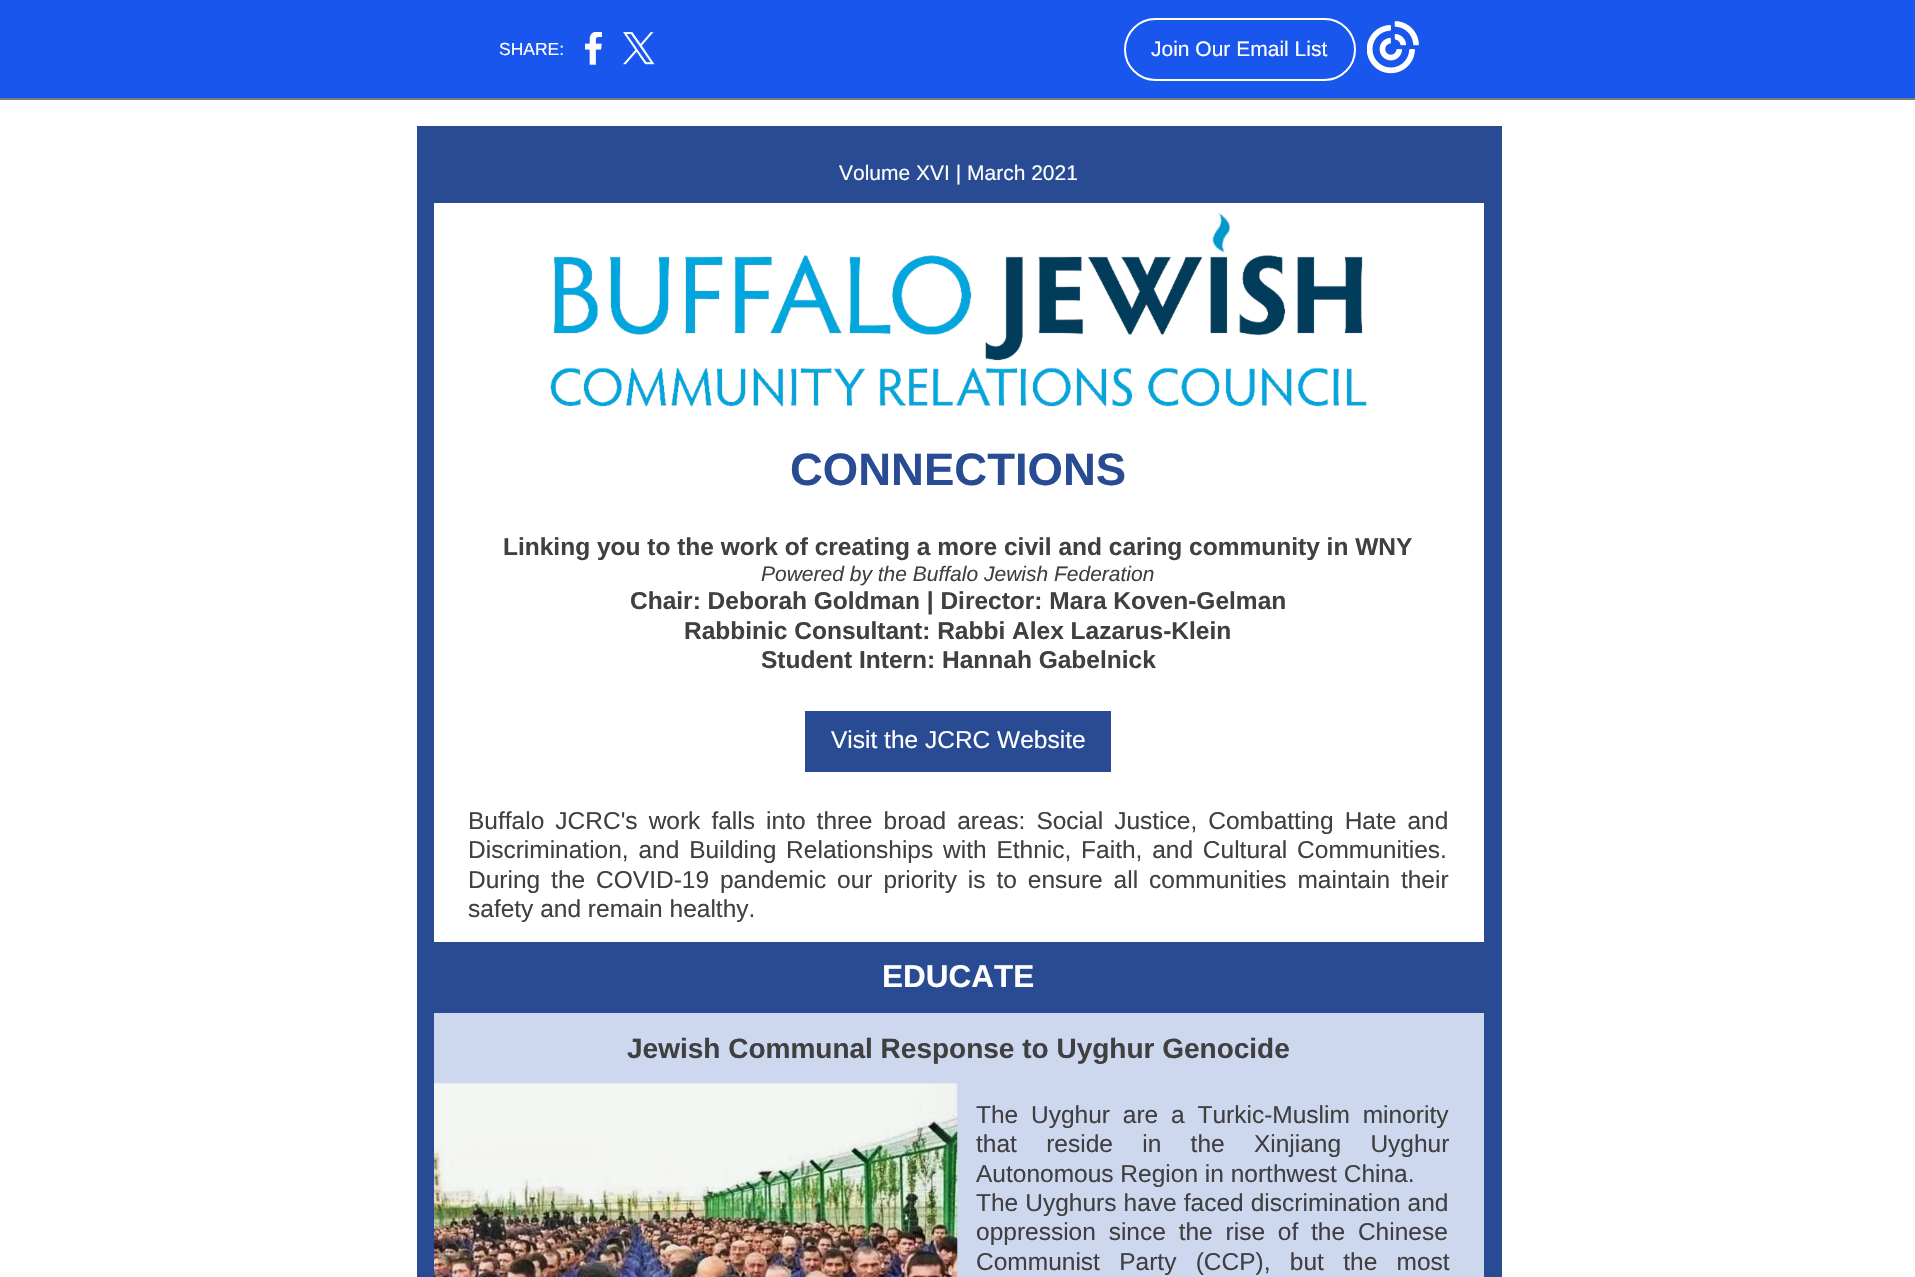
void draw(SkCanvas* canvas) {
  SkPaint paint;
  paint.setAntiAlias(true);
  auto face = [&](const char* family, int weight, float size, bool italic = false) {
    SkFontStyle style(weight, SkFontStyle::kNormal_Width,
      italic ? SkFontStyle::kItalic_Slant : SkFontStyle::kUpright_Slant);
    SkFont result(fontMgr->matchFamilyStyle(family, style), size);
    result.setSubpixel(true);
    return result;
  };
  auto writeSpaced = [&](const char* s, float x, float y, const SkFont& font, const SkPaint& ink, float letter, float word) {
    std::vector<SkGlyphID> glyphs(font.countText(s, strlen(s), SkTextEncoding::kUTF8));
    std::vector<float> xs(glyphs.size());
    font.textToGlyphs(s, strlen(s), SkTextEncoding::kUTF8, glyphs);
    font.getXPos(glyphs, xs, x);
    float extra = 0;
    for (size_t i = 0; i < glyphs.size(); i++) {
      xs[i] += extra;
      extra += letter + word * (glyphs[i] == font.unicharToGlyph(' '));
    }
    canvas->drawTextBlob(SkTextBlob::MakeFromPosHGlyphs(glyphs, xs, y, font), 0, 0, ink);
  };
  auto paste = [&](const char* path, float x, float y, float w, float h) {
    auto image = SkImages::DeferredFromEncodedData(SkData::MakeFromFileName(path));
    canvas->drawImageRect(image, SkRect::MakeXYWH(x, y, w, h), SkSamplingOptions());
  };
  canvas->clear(0xffffffff);
  paint.setColor(0xff1856ed);
  canvas->drawRect(SkRect::MakeXYWH(0, 0, 1915, 98), paint);
  paint.setColor(0xff7a7a7a);
  canvas->drawRect(SkRect::MakeXYWH(0, 98, 1915, 2), paint);
  paste("img/1.png", 585, 32, 17, 33);
  paste("img/2.png", 623, 32, 32, 33);
  paint.setStroke(true);
  paint.setStrokeWidth(2);
  paint.setColor(0xffffffff);
  canvas->drawRoundRect(SkRect::MakeXYWH(1125, 19, 230, 61), 30.5f, 30.5f, paint);
  paste("img/3.png", 1367, 21, 52, 53);
  paint.setStroke(false);
  paint.setColor(0xff294b93);
  canvas->drawRect(SkRect::MakeXYWH(417, 126, 1085, 1151), paint);
  paint.setColor(0xffffffff);
  canvas->drawRect(SkRect::MakeXYWH(434, 203, 1050, 739), paint);
  paste("img/4.png", 550, 213, 817, 194);
  {
    const struct { float x, y, w, h; SkColor color; } items[] = {
      {805, 711, 306, 61, 0xff294b93},
      {434, 1013, 1050, 70, 0xffcdd7ee},
      {434, 1083, 1050, 194, 0xffcdd7ee},
    };
    for (auto [x, y, w, h, color] : items) {
      paint.setColor(color);
      canvas->drawRect(SkRect::MakeXYWH(x, y, w, h), paint);
    }
  }
  paste("img/5.png", 434, 1083, 524, 194);
  auto f0 = face("Liberation Sans", 400, 17.5f);
  paint.setColor(0xffffffff);
  canvas->drawString("SHARE:", 499, 55, f0, paint);
  auto f1 = face("Liberation Sans", 400, 21);
  canvas->drawString("Join Our Email List", 1151, 56, f1, paint);
  canvas->drawString("Volume XVI | March 2021", 839, 180, f1, paint);
  auto f2 = face("Liberation Sans", 700, 45.5f);
  paint.setColor(0xff294b93);
  canvas->drawString("CONNECTIONS", 790, 485, f2, paint);
  auto f3 = face("Liberation Sans", 700, 24.5f);
  paint.setColor(0xff403f42);
  canvas->drawString("Linking you to the work of creating a more civil and caring community in WNY", 503, 555, f3, paint);
  auto f4 = face("Liberation Sans", 400, 21, true);
  canvas->drawString("Powered by the Buffalo Jewish Federation", 761, 581, f4, paint);
  {
    const struct { const char* s; float x, y; } items[] = {
      {"Chair: Deborah Goldman | Director: Mara Koven-Gelman", 630, 609},
      {"Rabbinic Consultant: Rabbi Alex Lazarus-Klein", 684, 639},
      {"Student Intern: Hannah Gabelnick", 761, 668},
    };
    for (auto [s, x, y] : items) {
      canvas->drawString(s, x, y, f3, paint);
    }
  }
  auto f5 = face("Liberation Sans", 400, 24.5f);
  paint.setColor(0xffffffff);
  canvas->drawString("Visit the JCRC Website", 831, 748, f5, paint);
  paint.setColor(0xff403f42);
  writeSpaced("Buffalo JCRC's work falls into three broad areas: Social Justice, Combatting Hate and", 468, 829, f5, paint, 0, 4.25f);
  writeSpaced("Discrimination, and Building Relationships with Ethnic, Faith, and Cultural Communities.", 468, 858, f5, paint, 0, 3);
  writeSpaced("During the COVID-19 pandemic our priority is to ensure all communities maintain their", 468, 888, f5, paint, 0, 4.1f);
  canvas->drawString("safety and remain healthy.", 468, 917, f5, paint);
  auto f6 = face("Liberation Sans", 700, 31.5f);
  paint.setColor(0xffffffff);
  canvas->drawString("EDUCATE", 882, 987, f6, paint);
  auto f7 = face("Liberation Sans", 700, 28);
  paint.setColor(0xff403f42);
  canvas->drawString("Jewish Communal Response to Uyghur Genocide", 627, 1058, f7, paint);
  writeSpaced("The Uyghur are a Turkic-Muslim minority", 976, 1123, f5, paint, 0, 6);
  writeSpaced("that reside in the Xinjiang Uyghur", 976, 1152, f5, paint, 0, 22.5f);
  canvas->drawString("Autonomous Region in northwest China.", 976, 1182, f5, paint);
  writeSpaced("The Uyghurs have faced discrimination and", 976, 1211, f5, paint, 0, 0.25f);
  writeSpaced("oppression since the rise of the Chinese", 976, 1240, f5, paint, 0, 6);
  writeSpaced("Communist Party (CCP), but the most", 976, 1270, f5, paint, 0, 12.5f);
}
